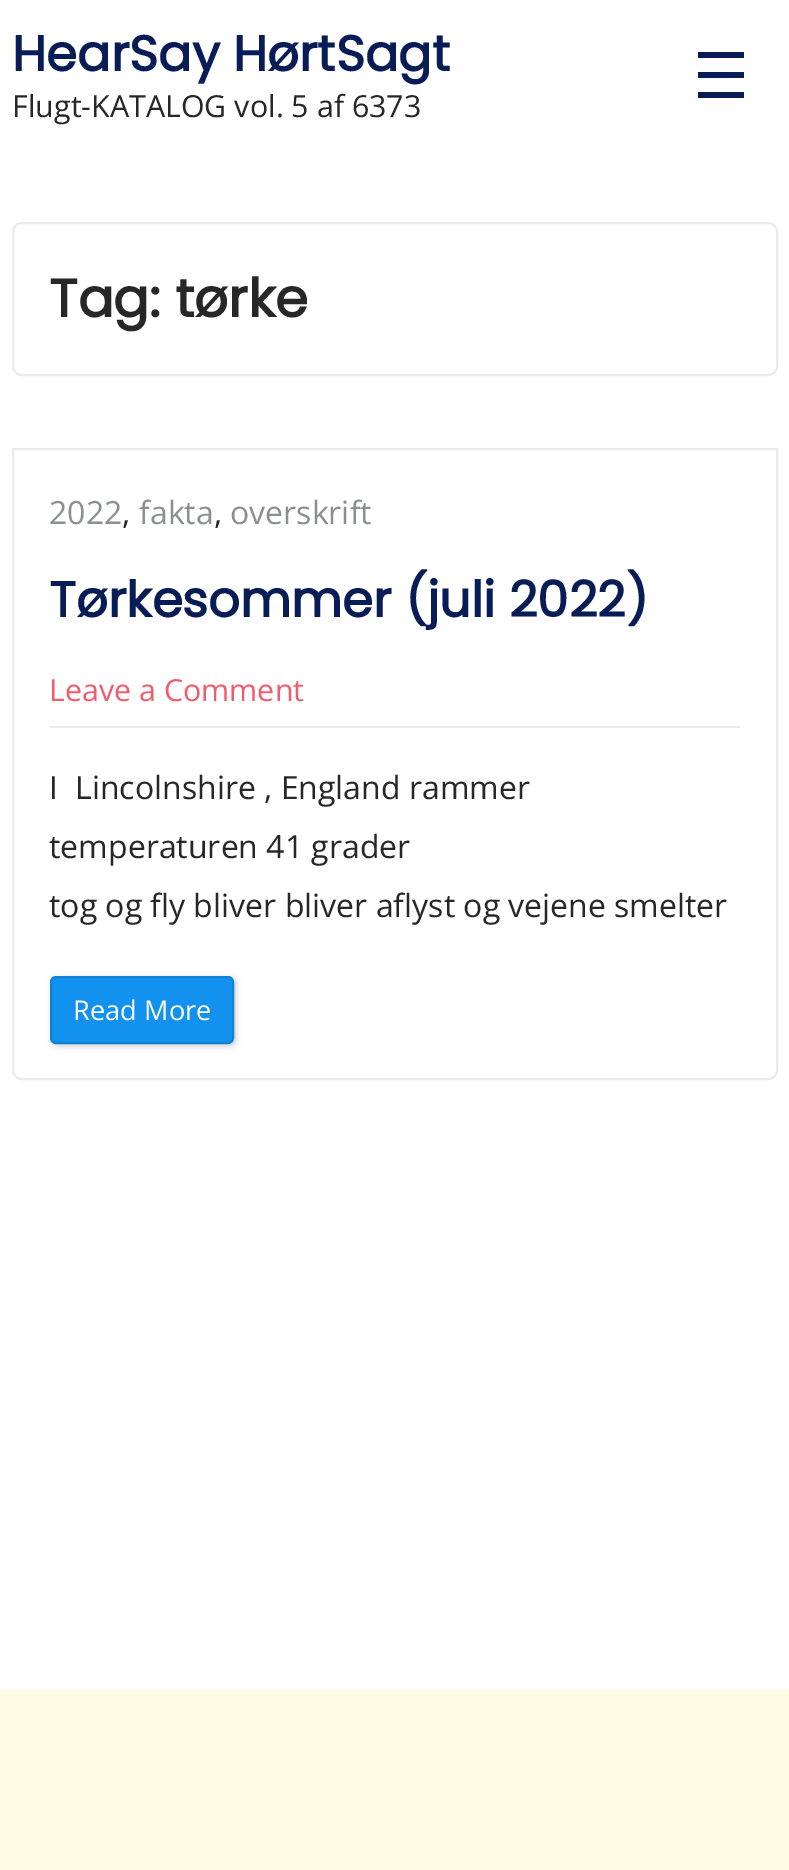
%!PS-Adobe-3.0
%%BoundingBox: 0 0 789 1870
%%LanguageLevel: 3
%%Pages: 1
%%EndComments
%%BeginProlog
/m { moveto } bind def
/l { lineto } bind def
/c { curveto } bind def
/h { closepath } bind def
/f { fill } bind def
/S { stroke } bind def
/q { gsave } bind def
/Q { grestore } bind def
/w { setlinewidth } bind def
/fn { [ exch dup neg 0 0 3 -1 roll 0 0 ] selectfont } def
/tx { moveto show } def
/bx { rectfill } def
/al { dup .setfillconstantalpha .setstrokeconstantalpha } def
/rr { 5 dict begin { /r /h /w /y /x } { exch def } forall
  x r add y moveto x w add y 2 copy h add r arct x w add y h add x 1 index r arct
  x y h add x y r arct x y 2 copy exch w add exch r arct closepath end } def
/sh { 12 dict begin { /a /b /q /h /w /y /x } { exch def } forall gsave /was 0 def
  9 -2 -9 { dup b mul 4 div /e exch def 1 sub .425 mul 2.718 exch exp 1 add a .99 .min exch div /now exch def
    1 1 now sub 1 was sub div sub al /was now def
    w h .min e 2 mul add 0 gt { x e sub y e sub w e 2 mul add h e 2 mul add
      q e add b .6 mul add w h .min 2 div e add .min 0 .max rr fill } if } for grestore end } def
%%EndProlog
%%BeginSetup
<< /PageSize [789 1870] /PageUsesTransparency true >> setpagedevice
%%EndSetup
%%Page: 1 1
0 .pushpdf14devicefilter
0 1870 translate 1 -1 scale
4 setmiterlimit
1 setgray
0 0 789 1870 bx
/Poppins-Bold 49.6 fn
0.031 0.114 0.337 setrgbcolor
(HearSay HørtSagt) 12 71 tx
/OpenSans-Regular 30.4 fn
0.153 setgray
(Flugt-KATALOG vol. 5 af 6373) 12 117 tx
0.031 0.114 0.337 setrgbcolor
698 52 46 6 bx
698 72 46 6 bx
698 92 46 6 bx
0.922 setgray
2 w
13 223 764 152 9 rr S
/Poppins-Bold 53 fn
0.153 setgray
(Tag: tørke) 49 317 tx
0.922 setgray
13 449 m 777 449 l 777 1070 l 777 1075 773 1079 768 1079 c 22 1079 l 17 1079 13 1075 13 1070 c h S
/OpenSans-Regular 32 fn
0.545 0.557 0.576 setrgbcolor
(2022) 49 524 tx
0.153 setgray
(,) 122 524 tx
0.545 0.557 0.576 setrgbcolor
(fakta) 139 524 tx
0.153 setgray
(,) 214 524 tx
0.545 0.557 0.576 setrgbcolor
(overskrift) 230 524 tx
/Poppins-Bold 49.6 fn
0.031 0.114 0.337 setrgbcolor
(Tørkesommer \(juli 2022\)) 49 617 tx
0.922 setgray
50 726 690 2 bx
/OpenSans-Regular 30.4 fn
0.945 0.357 0.424 setrgbcolor
(Leave a Comment) 49 701 tx
/OpenSans-Regular 32 fn
0.153 setgray
(I) 49 799 tx
(Lincolnshire , England rammer) 75 799 tx
(temperaturen 41 grader) 49 858 tx
(tog og fly bliver bliver aflyst og vejene smelter) 49 917 tx
0 setgray
52 978 184 68 6 3 0.2 sh
0.071 0.569 0.933 setrgbcolor
51 977 182 66 5 rr q f Q
0.059 0.51 0.839 setrgbcolor
S
/OpenSans-Regular 27.25 fn
1 setgray
(Read More) 73 1020 tx
0.996 0.984 0.886 setrgbcolor
0 1690 789 180 bx
.poppdf14devicefilter showpage
%%EOF
